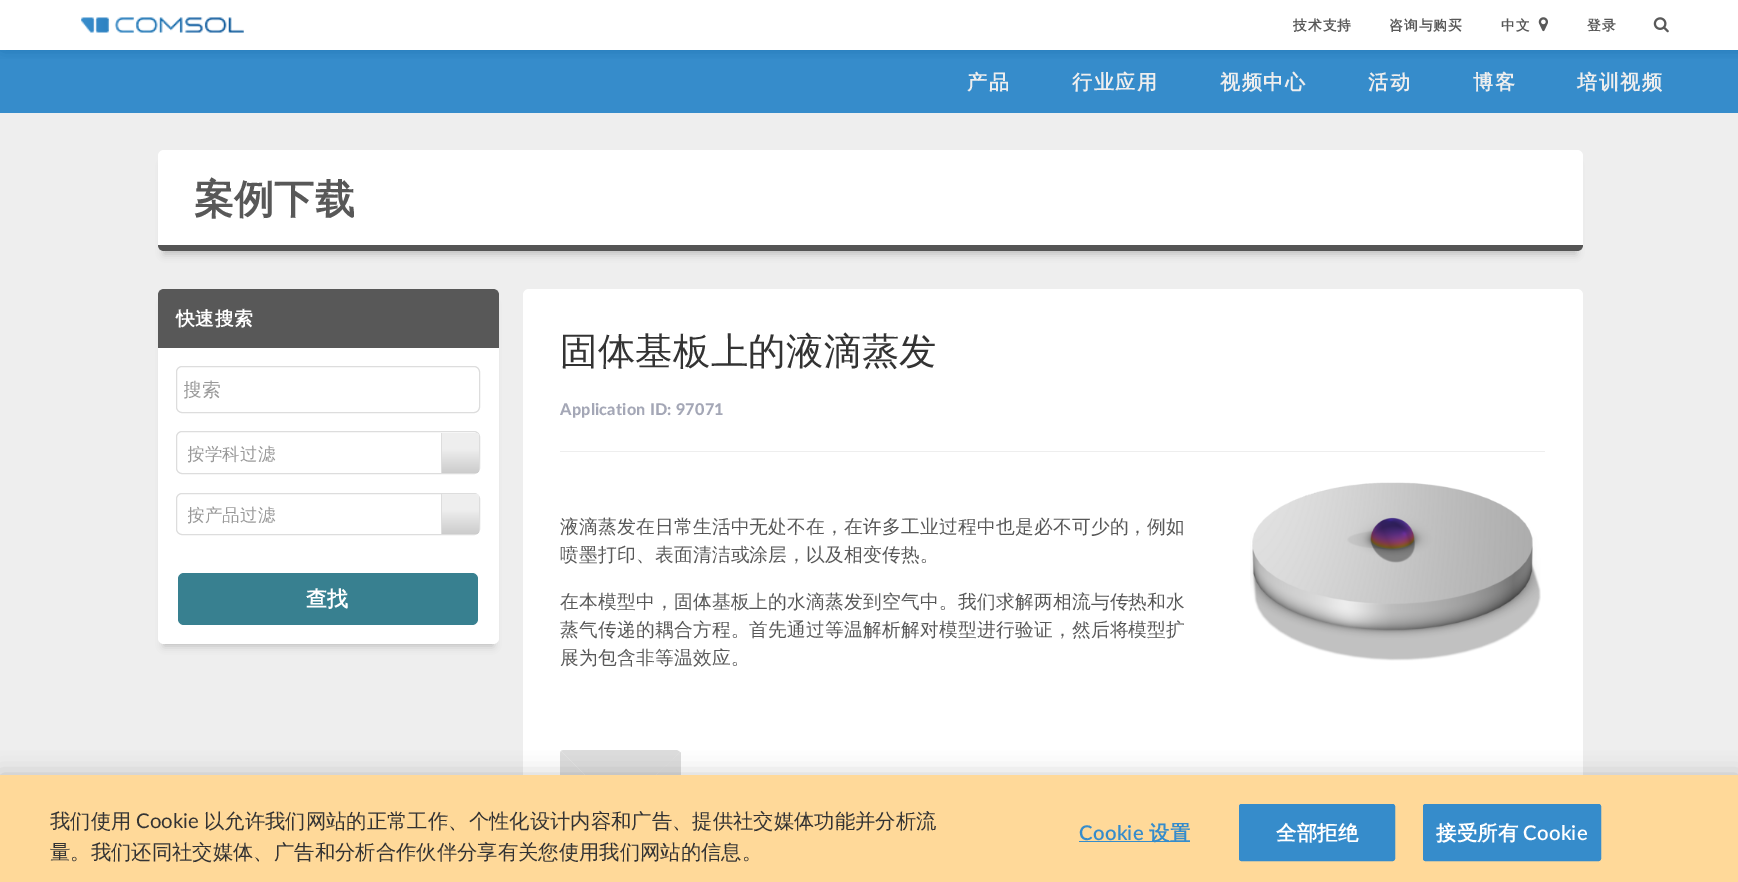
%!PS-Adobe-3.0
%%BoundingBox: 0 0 1738 882
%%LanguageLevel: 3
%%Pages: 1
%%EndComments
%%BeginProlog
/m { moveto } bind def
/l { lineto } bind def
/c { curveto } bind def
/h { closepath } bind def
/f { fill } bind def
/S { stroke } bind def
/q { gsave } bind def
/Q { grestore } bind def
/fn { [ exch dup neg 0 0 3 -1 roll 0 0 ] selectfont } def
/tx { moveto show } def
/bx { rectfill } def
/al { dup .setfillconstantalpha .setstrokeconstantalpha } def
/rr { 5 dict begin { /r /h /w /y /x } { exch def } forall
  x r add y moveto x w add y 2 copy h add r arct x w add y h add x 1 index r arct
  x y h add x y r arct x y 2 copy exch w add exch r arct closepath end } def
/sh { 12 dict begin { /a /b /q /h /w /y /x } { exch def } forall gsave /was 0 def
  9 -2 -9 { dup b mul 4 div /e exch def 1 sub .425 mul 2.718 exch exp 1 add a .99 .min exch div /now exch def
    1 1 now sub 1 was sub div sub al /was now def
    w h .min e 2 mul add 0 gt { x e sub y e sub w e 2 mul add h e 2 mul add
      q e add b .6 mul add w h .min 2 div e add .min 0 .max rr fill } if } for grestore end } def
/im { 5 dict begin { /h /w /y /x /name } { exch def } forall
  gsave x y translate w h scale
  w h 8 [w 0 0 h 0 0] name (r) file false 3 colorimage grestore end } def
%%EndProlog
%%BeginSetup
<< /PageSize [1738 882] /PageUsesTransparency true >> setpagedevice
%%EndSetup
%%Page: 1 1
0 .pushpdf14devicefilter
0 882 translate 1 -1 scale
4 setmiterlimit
1 setgray
0 0 1738 882 bx
0.212 0.549 0.796 setrgbcolor
0 50 1738 63 bx
q
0 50 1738 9 rectclip
0 0.333 0.588 setrgbcolor
4 -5 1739 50 0 7 1 sh
Q
(image0.raw) 81 17 163 16 im
/WenQuanYiZenHei-Bold 13.75 fn
0.345 setgray
1293 30 m 1 0 (技术支持) ashow
1389 30 m 1 0 (咨询与购买) ashow
1501 30 m 1 0 (中文) ashow
(image1.raw) 1538 17 10 15 im
1587 30 m 1 0 (登录) ashow
(image2.raw) 1653 17 16 16 im
/WenQuanYiZenHei-Bold 20 fn
0.933 setgray
967 89 m 1.5 0 (产品) ashow
1072 89 m 1.5 0 (行业应用) ashow
1220 89 m 1.5 0 (视频中心) ashow
1368 89 m 1.5 0 (活动) ashow
1473 89 m 1.5 0 (博客) ashow
1577 89 m 1.5 0 (培训视频) ashow
0 113 1738 662 bx
0 setgray
164 165 1412 89 0 4 0.2 sh
1 setgray
158 150 1425 101 6 rr f
0.333 setgray
158 245 m 1583 245 l 1583 248.5 1580.5 251 1577 251 c 164 251 l 160.5 251 158 248.5 158 245 c h f
/WenQuanYiZenHei-Bold 40 fn
0.345 setgray
194 213 m 0.2 0 (案例下载) ashow
0 setgray
164 304 329 342 0 4 0.2 sh
1 setgray
158 289 341 355 6 rr f
0.345 setgray
164 289 m 493 289 l 496.5 289 499 291.5 499 295 c 499 348 l 158 348 l 158 295 l 158 291.5 160.5 289 164 289 c h f
/WenQuanYiZenHei-Bold 18.75 fn
1 setgray
176 325 m 0.5 0 (快速搜索) ashow
0.867 setgray
176.5 366.5 303 46 5.5 rr S
q
184 375 289 28 rectclip
/WenQuanYiZenHei-Medium 18.75 fn
0.6 setgray
(搜索) 183 396 tx
Q
176.5 431.5 303 42 5.5 rr S
q
188 433 258 40 rectclip
/WenQuanYiZenHei-Medium 17.5 fn
0.6 setgray
187 460 m 0.2 0 (按学科过滤) ashow
Q
q 441 433 m 474 433 l 477 433 479 435 479 438 c 479 468 l 479 471 477 473 474 473 c 441 473 l h clip newpath
<< /ShadingType 2 /ColorSpace /DeviceRGB /Coords [443 473 443 433] /Extend [true true] /Function << /FunctionType 3 /Domain [0 1] /Functions [<< /FunctionType 2 /Domain [0 1] /C0 [0.8 0.8 0.8] /C1 [0.933 0.933 0.933] /N 1 >> << /FunctionType 2 /Domain [0 1] /C0 [0.933 0.933 0.933] /C1 [0.933 0.933 0.933] /N 1 >>] /Bounds [0.6] /Encode [0 1 0 1] >> >> shfill Q
441 433 1 40 bx
176.5 493.5 303 41 5.5 rr S
q
188 494 258 40 rectclip
/WenQuanYiZenHei-Medium 17.5 fn
0.6 setgray
187 521 m 0.2 0 (按产品过滤) ashow
Q
q 441 494 m 474 494 l 477 494 479 496 479 499 c 479 529 l 479 532 477 534 474 534 c 441 534 l h clip newpath
<< /ShadingType 2 /ColorSpace /DeviceRGB /Coords [443 534 443 494] /Extend [true true] /Function << /FunctionType 3 /Domain [0 1] /Functions [<< /FunctionType 2 /Domain [0 1] /C0 [0.8 0.8 0.8] /C1 [0.933 0.933 0.933] /N 1 >> << /FunctionType 2 /Domain [0 1] /C0 [0.933 0.933 0.933] /C1 [0.933 0.933 0.933] /N 1 >>] /Bounds [0.6] /Encode [0 1 0 1] >> >> shfill Q
441 494 1 40 bx
0.22 0.502 0.565 setrgbcolor
178 573 300 52 6 rr f
/WenQuanYiZenHei-Bold 21 fn
1 setgray
(查找) 306 606 tx
523 289 1060 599 6 rr f
/WenQuanYiZenHei-Medium 37.5 fn
0.2 setgray
560 364 m 0.2 0 (固体基板上的液滴蒸发) ashow
/Lato-Black 16.25 fn
0.643 0.655 0.714 setrgbcolor
560 415 m 0.2 0 (Application ID: 97071) ashow
0.933 setgray
560 451 985 1 bx
/WenQuanYiZenHei-Medium 18.75 fn
0.345 setgray
560 533 m 0.2 0 (液滴蒸发在日常生活中无处不在，在许多工业过程中也是必不可少的，例如) ashow
560 561 m 0.2 0 (喷墨打印、表面清洁或涂层，以及相变传热。) ashow
560 608 m 0.2 0 (在本模型中，固体基板上的水滴蒸发到空气中。我们求解两相流与传热和水) ashow
560 636 m 0.2 0 (蒸气传递的耦合方程。首先通过等温解析解对模型进行验证，然后将模型扩) ashow
560 664 m 0.2 0 (展为包含非等温效应。) ashow
(image3.raw) 1250 482 291 179 im
0.867 setgray
565 750 m 677 750 l 680 752 l 652 779 l 589 779 l 561 751 l 562 750 564 750 565 750 c h f
680 752 m 652 779 l 681 807 l 681 755 l 681 754 681 752 680 752 c h f
560 808 m 589 779 l 561 751 l 560 752 560 754 560 755 c h f
0 setgray
0 775 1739 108 0 11 0.2 sh
1 0.851 0.6 setrgbcolor
0 775 1738 107 bx
/WenQuanYiZenHei-Medium 20.35 fn
0.2 setgray
(我们使用) 50 828 tx
/Lato-Regular 20.35 fn
(Cookie) 136 828 tx
/WenQuanYiZenHei-Medium 20.35 fn
(以允许我们网站的正常工作、个性化设计内容和广告、提供社交媒体功能并分析流) 204 828 tx
(量。我们还同社交媒体、广告和分析合作伙伴分享有关您使用我们网站的信息。) 50 859 tx
/Lato-SemiBold 20.35 fn
0.212 0.549 0.796 setrgbcolor
1079 840 m 0.25 0 (Cookie) ashow
1079 841 111 1 bx
/WenQuanYiZenHei-Bold 20.35 fn
1149 840 m 0.25 0 (设置) ashow
1239.5 804.5 155 56 2 rr q f Q
S
1 setgray
1276 840 m 0.25 0 (全部拒绝) ashow
0.212 0.549 0.796 setrgbcolor
1423.5 804.5 177 56 2 rr q f Q
S
1 setgray
1436 840 m 0.25 0 (接受所有) ashow
/Lato-SemiBold 20.35 fn
1523 840 m 0.25 0 (Cookie) ashow
.poppdf14devicefilter showpage
%%EOF
